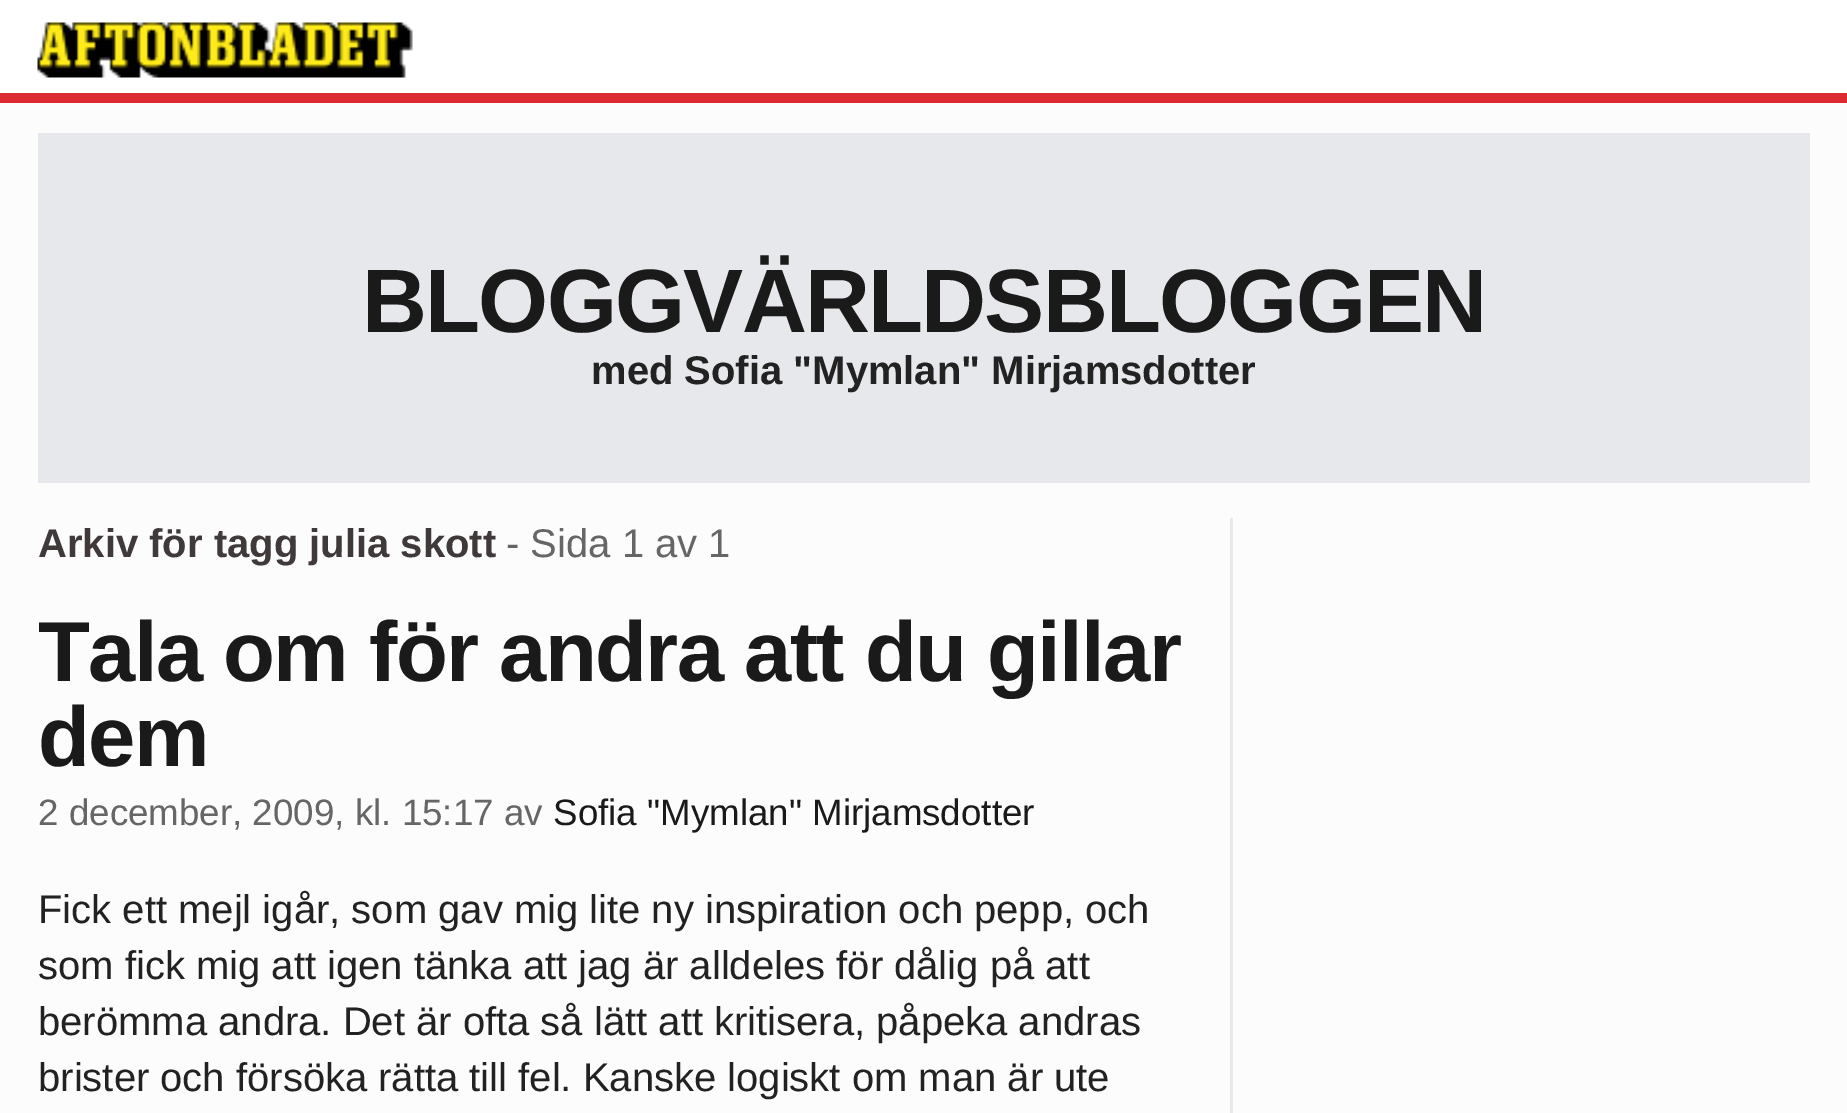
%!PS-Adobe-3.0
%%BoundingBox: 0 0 1847 1113
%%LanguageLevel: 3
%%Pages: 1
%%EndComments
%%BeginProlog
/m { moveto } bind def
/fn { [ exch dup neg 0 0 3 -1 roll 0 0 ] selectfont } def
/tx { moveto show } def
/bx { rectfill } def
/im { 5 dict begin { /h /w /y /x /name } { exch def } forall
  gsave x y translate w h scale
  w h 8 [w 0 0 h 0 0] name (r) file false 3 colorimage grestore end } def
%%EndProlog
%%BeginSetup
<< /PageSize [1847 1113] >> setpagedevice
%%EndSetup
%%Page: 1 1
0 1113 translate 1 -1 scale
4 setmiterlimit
0.988 setgray
0 0 1847 1113 bx
1 setgray
0 0 1847 93 bx
0.867 0.165 0.188 setrgbcolor
0 93 1847 10 bx
(image0.raw) 37 22 376 56 im
0.906 0.91 0.922 setrgbcolor
38 133 1772 350 bx
/LiberationSans-Bold 90 fn
0.102 setgray
362 332 m -1.75 0 (BLOGGVÄRLDSBLOGGEN) ashow
/LiberationSans-Bold 40 fn
0.133 setgray
(med Sofia "Mymlan" Mirjamsdotter) 591 384 tx
0.914 setgray
1230 518 3 595 bx
0.251 0.224 0.227 setrgbcolor
(Arkiv för tagg julia skott) 38 557 tx
/LiberationSans-Regular 40 fn
0.4 setgray
(- Sida 1 av 1) 506 557 tx
/LiberationSans-Bold 85 fn
0.102 setgray
38 681 m -1.7 0 (Tala om för andra att du gillar) ashow
38 766 m -1.7 0 (dem) ashow
/LiberationSans-Regular 36.75 fn
0.4 setgray
(2 december, 2009, kl. 15:17 av) 38 825 tx
0.102 setgray
(Sofia "Mymlan" Mirjamsdotter) 553 825 tx
/LiberationSans-Regular 40 fn
0.133 setgray
(Fick ett mejl igår, som gav mig lite ny inspiration och pepp, och) 38 923 tx
(som fick mig att igen tänka att jag är alldeles för dålig på att) 38 979 tx
(berömma andra. Det är ofta så lätt att kritisera, påpeka andras) 38 1035 tx
(brister och försöka rätta till fel. Kanske logiskt om man är ute) 38 1091 tx
showpage
%%EOF
